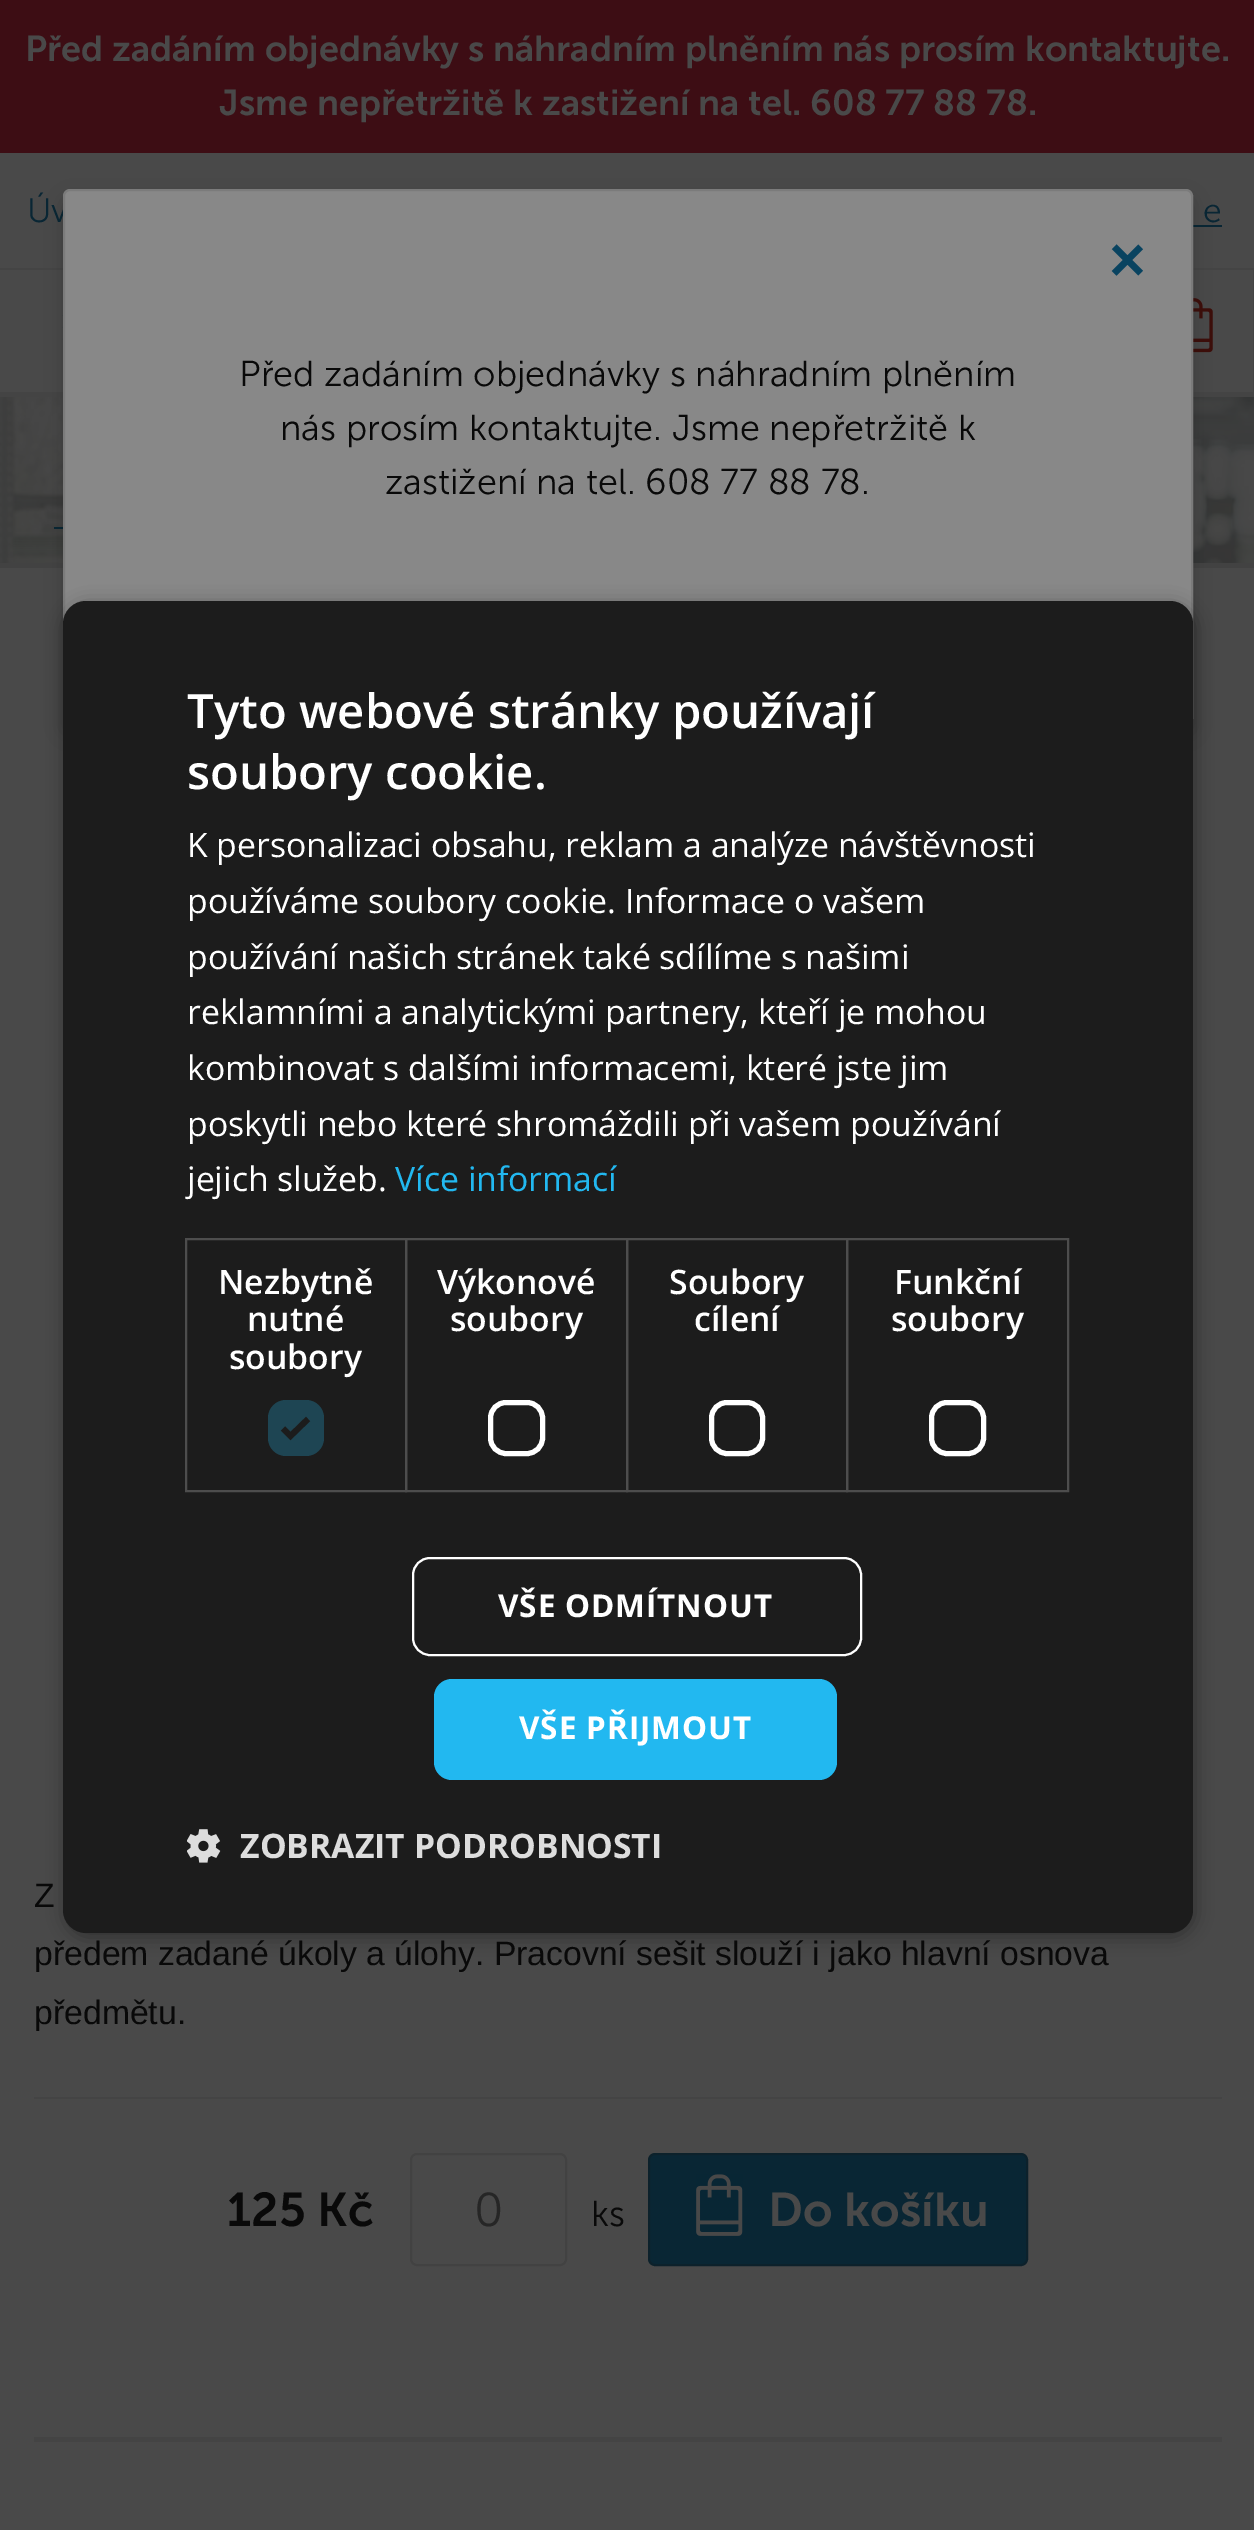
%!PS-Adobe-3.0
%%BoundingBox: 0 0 1254 2530
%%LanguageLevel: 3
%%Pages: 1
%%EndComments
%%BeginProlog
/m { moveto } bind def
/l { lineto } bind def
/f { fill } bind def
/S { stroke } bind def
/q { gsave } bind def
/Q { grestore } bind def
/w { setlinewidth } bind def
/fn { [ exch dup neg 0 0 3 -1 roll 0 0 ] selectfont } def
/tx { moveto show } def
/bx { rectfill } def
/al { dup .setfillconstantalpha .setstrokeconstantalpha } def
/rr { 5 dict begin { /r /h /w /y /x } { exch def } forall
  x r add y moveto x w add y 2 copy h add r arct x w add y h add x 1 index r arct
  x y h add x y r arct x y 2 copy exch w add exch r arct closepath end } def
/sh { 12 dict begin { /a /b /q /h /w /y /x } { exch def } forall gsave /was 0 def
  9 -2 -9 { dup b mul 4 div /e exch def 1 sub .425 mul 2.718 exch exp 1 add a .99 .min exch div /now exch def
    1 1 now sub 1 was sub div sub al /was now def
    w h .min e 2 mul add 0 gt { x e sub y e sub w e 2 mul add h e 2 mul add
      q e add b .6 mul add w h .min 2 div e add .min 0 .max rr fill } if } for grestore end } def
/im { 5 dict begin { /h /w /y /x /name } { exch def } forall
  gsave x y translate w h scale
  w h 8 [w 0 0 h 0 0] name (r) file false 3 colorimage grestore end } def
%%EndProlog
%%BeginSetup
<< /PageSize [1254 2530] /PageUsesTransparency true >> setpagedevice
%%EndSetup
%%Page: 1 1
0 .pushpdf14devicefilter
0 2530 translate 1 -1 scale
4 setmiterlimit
0.286 setgray
0 0 1254 2530 bx
0.239 0.051 0.078 setrgbcolor
0 0 1254 153 bx
/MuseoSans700-SemiBold 36 fn
0.286 setgray
(Před zadáním objednávky s náhradním plněním nás prosím kontaktujte.) 25 61 tx
(Jsme nepřetržitě k zastižení na tel. 608 77 88 78.) 219 115 tx
0.267 setgray
0 268 1254 2 bx
/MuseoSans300-Light 33.75 fn
0.035 0.149 0.204 setrgbcolor
(Úv) 27 222 tx
(e) 1203 222 tx
1193 225 29 2 bx
0.267 setgray
0 392 1254 5 bx
(image0.raw) 62 315 1 25 im
(image1.raw) 1193 298 20 55 im
(image3.raw) 0 397 1254 166 im
0.259 setgray
0 563 1254 5 bx
0.035 0.149 0.204 setrgbcolor
54 527 9 2 bx
0.035 setgray
63 198 1130 536 7 9 0.2 sh
0.533 setgray
64 190 1128 534 6 rr q f Q
0.482 setgray
2 w
S
/LiberationSans-Bold 63 fn
0.035 0.263 0.376 setrgbcolor
(×) 1109 281 tx
/MuseoSans300-Light 36 fn
0.035 setgray
(Před zadáním objednávky s náhradním plněním) 239 386 tx
(nás prosím kontaktujte. Jsme nepřetržitě k) 280 440 tx
(zastižení na tel. 608 77 88 78.) 385 494 tx
0.267 setgray
1253 270 1 122 bx
0 setgray
65 605 1130 1332 23 9 0.35 sh
0.11 setgray
63 601 1130 1332 23 rr f
/OpenSans-SemiBold 47.25 fn
1 setgray
(Tyto webové stránky používají) 187 728 tx
(soubory cookie.) 187 789 tx
/OpenSans-Regular 33.75 fn
(K personalizaci obsahu, reklam a analýze návštěvnosti) 187 857 tx
(používáme soubory cookie. Informace o vašem) 187 913 tx
(používání našich stránek také sdílíme s našimi) 187 969 tx
(reklamními a analytickými partnery, kteří je mohou) 187 1024 tx
(kombinovat s dalšími informacemi, které jste jim) 187 1080 tx
(poskytli nebo které shromáždili při vašem používání) 187 1136 tx
(jejich služeb.) 187 1191 tx
0.133 0.722 0.941 setrgbcolor
(Více informací) 395 1191 tx
0.302 setgray
186 1239 220 252 rectstroke
/OpenSans-SemiBold 33.75 fn
1 setgray
(Nezbytně) 218 1294 tx
(nutné) 247 1331 tx
(soubory) 229 1369 tx
0.118 0.271 0.325 setrgbcolor
268 1400 56 56 18 rr f
0.11 setgray
5.9 w
283 1428.5 m 290.5 1436 l 308 1419 l S
0.302 setgray
2 w
406 1239 221 252 rectstroke
1 setgray
(Výkonové) 437 1294 tx
(soubory) 450 1331 tx
5 w
490.5 1402.5 52 51 15.5 rr S
0.302 setgray
2 w
627 1239 220 252 rectstroke
1 setgray
(Soubory) 669 1294 tx
(cílení) 694 1331 tx
5 w
711.5 1402.5 51 51 15.5 rr S
0.302 setgray
2 w
847 1239 221 252 rectstroke
1 setgray
(Funkční) 894 1294 tx
(soubory) 891 1331 tx
5 w
931.5 1402.5 52 51 15.5 rr S
2 w
413 1558 448 97 17 rr S
/OpenSans-Bold 31.5 fn
498 1617 m 0.9 0 (VŠE ODMÍTNOUT) ashow
0.133 0.722 0.941 setrgbcolor
434 1679 403 101 18 rr f
1 setgray
519 1739 m 0.9 0 (VŠE PŘIJMOUT) ashow
(image2.raw) 187 1829 34 34 im
/OpenSans-Bold 33.75 fn
0.867 setgray
(ZOBRAZIT PODROBNOSTI) 240 1858 tx
0.267 setgray
34 2437 1188 5 bx
34 2097 1188 2 bx
/LiberationSans-Regular 33.75 fn
0.035 setgray
(Z) 34 1907 tx
(předem zadané úkoly a úlohy. Pracovní sešit slouží i jako hlavní osnova) 34 1965 tx
(předmětu.) 34 2024 tx
/MuseoSans700-SemiBold 47.25 fn
(125 Kč) 227 2226 tx
0.259 setgray
411 2154 155 111 6 rr S
/MuseoSans300-Light 47.25 fn
0.149 setgray
(0) 474 2226 tx
/MuseoSans300-Light 36 fn
0.035 setgray
(ks) 591 2226 tx
0.035 0.149 0.204 setrgbcolor
649 2154 378 111 6 rr q f Q
0.047 0.129 0.169 setrgbcolor
S
(image4.raw) 696 2174 47 62 im
/MuseoSans700-SemiBold 47.25 fn
0.286 setgray
(Do košíku) 768 2226 tx
.poppdf14devicefilter showpage
%%EOF
